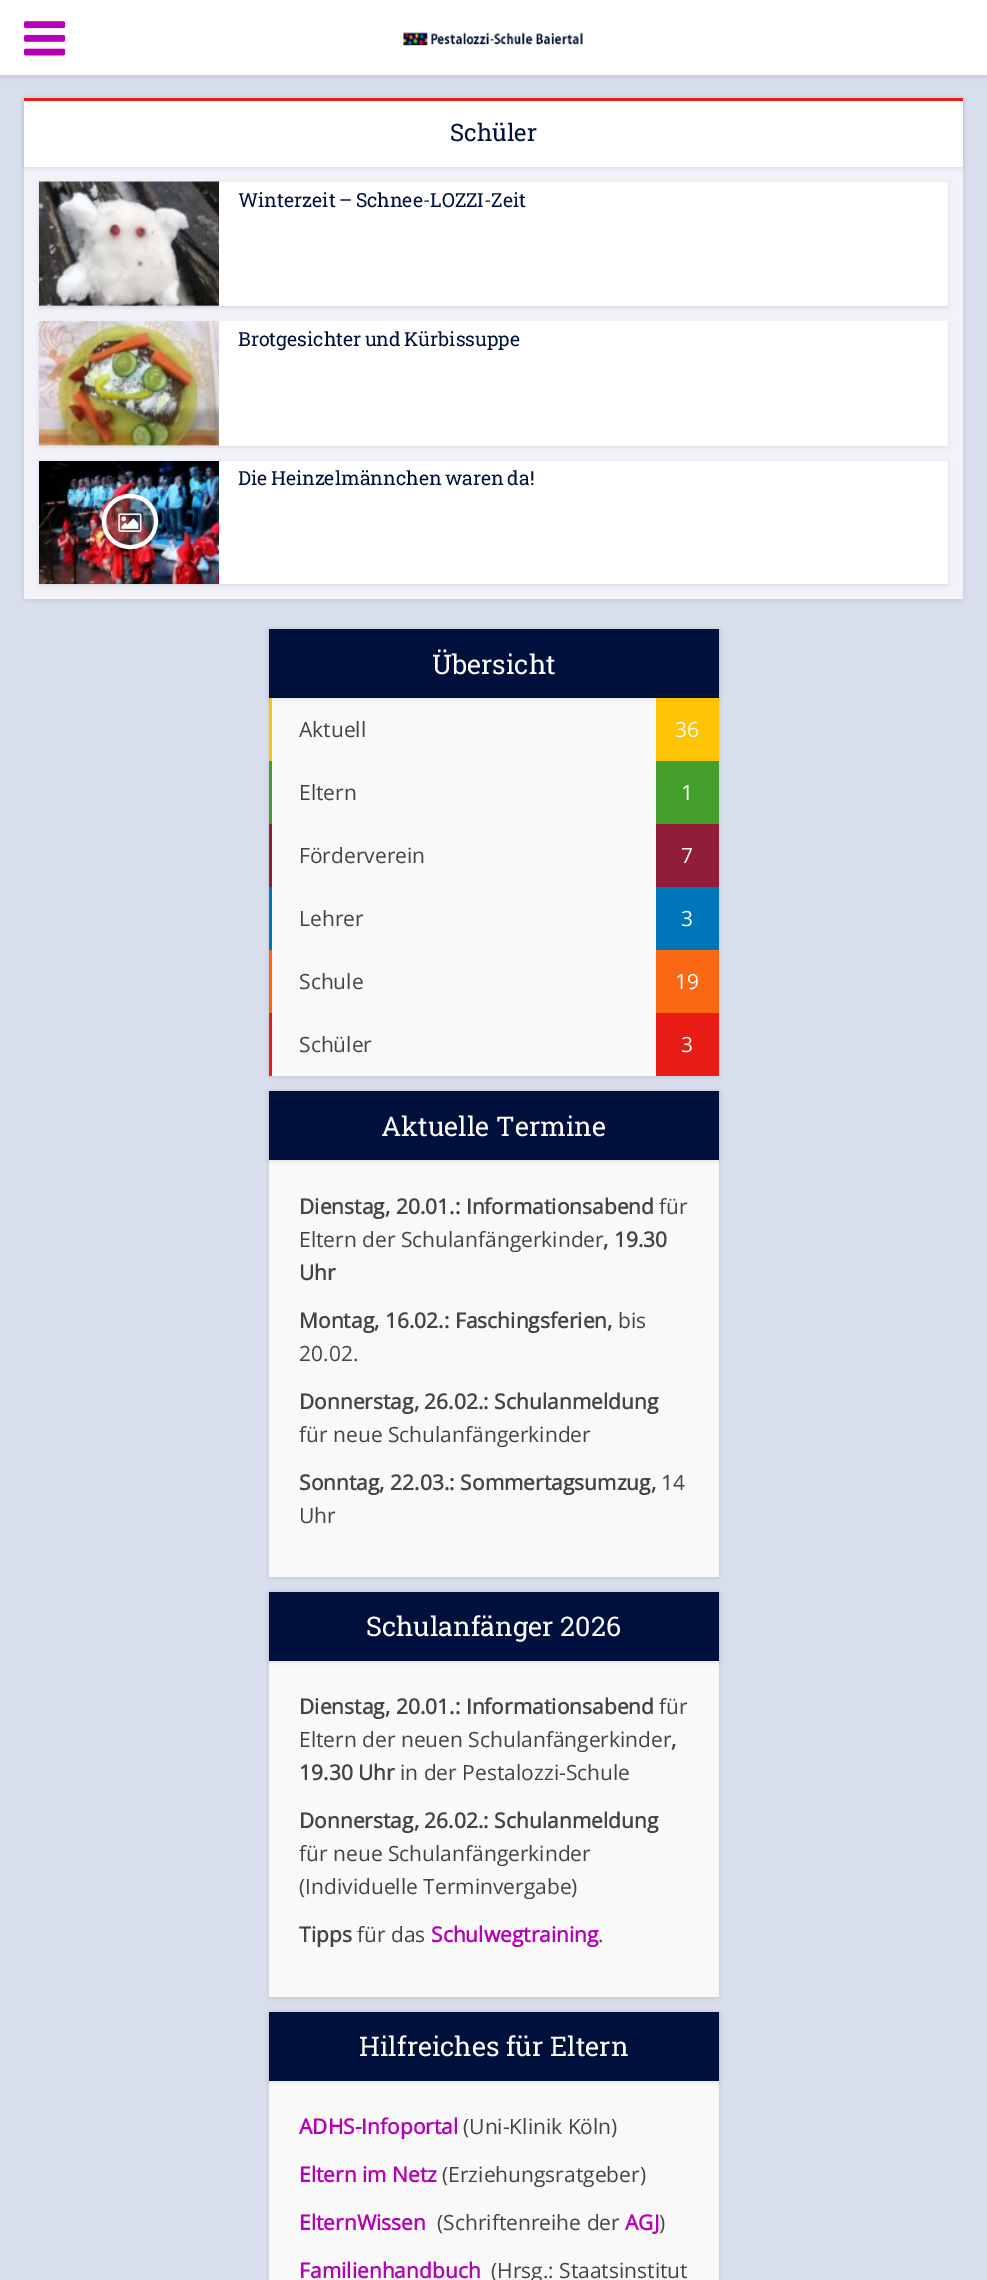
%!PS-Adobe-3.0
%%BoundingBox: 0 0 987 2280
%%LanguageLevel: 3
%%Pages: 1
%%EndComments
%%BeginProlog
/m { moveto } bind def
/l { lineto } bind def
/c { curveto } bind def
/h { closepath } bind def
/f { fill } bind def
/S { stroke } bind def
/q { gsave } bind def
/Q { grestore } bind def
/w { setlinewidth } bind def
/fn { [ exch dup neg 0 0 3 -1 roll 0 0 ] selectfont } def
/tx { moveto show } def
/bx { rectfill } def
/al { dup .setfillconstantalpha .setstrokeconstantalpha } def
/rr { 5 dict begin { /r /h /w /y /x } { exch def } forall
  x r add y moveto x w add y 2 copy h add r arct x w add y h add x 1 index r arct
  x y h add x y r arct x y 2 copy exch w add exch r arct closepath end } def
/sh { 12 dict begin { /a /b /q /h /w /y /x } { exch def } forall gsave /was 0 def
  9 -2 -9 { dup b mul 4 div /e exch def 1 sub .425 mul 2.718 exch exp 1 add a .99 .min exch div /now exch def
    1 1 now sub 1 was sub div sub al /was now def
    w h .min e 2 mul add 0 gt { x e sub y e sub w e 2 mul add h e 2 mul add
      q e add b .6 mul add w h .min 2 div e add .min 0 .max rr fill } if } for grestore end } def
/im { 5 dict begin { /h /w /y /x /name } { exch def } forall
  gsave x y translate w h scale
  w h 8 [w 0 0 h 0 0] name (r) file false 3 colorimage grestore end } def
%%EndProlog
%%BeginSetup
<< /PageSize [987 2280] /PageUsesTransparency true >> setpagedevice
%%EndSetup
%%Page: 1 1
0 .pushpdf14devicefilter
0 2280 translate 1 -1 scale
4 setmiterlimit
0.847 0.871 0.925 setrgbcolor
0 0 987 2280 bx
0 setgray
0 2 987 75 0 2 0.1 sh
1 setgray
0 0 987 75 bx
(image0.raw) 24 21 42 35 im
(image1.raw) 403 31 180 17 im
0 setgray
24 99 939 501 0 2 0.1 sh
0.945 0.953 0.973 setrgbcolor
24 167 939 432 bx
0 setgray
24 99 939 69 0 2 0.1 sh
1 setgray
24 101 939 66 bx
0.902 0.11 0.082 setrgbcolor
24 98 939 3 bx
/RobotoSlab-Regular 24 fn
0 0.063 0.235 setrgbcolor
(Schüler) 450 141 tx
0 setgray
39 183 909 125 0 2 0.1 sh
1 setgray
39 182 909 124 bx
(image2.raw) 39 181 180 125 im
/RobotoSlab-Regular 19.5 fn
0 0.063 0.235 setrgbcolor
238 207 m -1.5 0 32 (Winterzeit – Schnee-LOZZI-Zeit) widthshow
0 setgray
39 323 909 124 0 2 0.1 sh
1 setgray
39 321 909 125 bx
(image3.raw) 39 321 180 125 im
0 0.063 0.235 setrgbcolor
238 346 m -1.5 0 32 (Brotgesichter und Kürbissuppe) widthshow
0 setgray
39 462 909 123 0 2 0.1 sh
1 setgray
219 461 729 123 bx
(image4.raw) 39 461 180 123 im
q
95 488 m 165 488 l 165 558 l 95 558 l h 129.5 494 m 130.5 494 l 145.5 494 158 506.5 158 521.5 c 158 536.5 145.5 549 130.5 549 c 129.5 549 l 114.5 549 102 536.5 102 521.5 c 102 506.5 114.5 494 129.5 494 c h eoclip newpath
0 setgray
102 495 56 56 28 2 0.2 sh
Q
0.5 al
0.29 setgray
104 496 52 51 25.5 rr f
1 al
1 setgray
4 w
104 496 52 51 25.5 rr S
(image5.raw) 118 513 24 19 im
0 0.063 0.235 setrgbcolor
238 485 m -1.5 0 32 (Die Heinzelmännchen waren da!) widthshow
0 setgray
269 630 450 447 0 2 0.1 sh
0.976 setgray
272 698 384 378 bx
0 setgray
269 630 450 69 0 2 0.1 sh
0 0.063 0.235 setrgbcolor
269 629 450 69 bx
/RobotoSlab-Regular 27 fn
1 setgray
(Übersicht) 432 674 tx
0.996 0.765 0.012 setrgbcolor
269 698 3 63 bx
/OpenSans-Regular 21 fn
0.267 setgray
(Aktuell) 299 737 tx
0.996 0.765 0.012 setrgbcolor
656 698 63 63 bx
1 setgray
(36) 675 737 tx
0.267 0.62 0.169 setrgbcolor
269 761 3 63 bx
0.267 setgray
(Eltern) 299 800 tx
0.267 0.62 0.169 setrgbcolor
656 761 63 63 bx
1 setgray
(1) 681 800 tx
0.569 0.114 0.22 setrgbcolor
269 824 3 63 bx
0.267 setgray
(Förderverein) 299 863 tx
0.569 0.114 0.22 setrgbcolor
656 824 63 63 bx
1 setgray
(7) 681 863 tx
0 0.463 0.729 setrgbcolor
269 887 3 63 bx
0.267 setgray
(Lehrer) 299 926 tx
0 0.463 0.729 setrgbcolor
656 887 63 63 bx
1 setgray
(3) 681 926 tx
0.98 0.408 0.078 setrgbcolor
269 950 3 63 bx
0.267 setgray
(Schule) 299 989 tx
0.98 0.408 0.078 setrgbcolor
656 950 63 63 bx
1 setgray
(19) 675 989 tx
0.902 0.11 0.082 setrgbcolor
269 1013 3 63 bx
0.267 setgray
(Schüler) 299 1052 tx
0.902 0.11 0.082 setrgbcolor
656 1013 63 63 bx
1 setgray
(3) 681 1052 tx
0 setgray
269 1092 450 486 0 2 0.1 sh
0.976 setgray
269 1160 450 417 bx
0 setgray
269 1092 450 69 0 2 0.1 sh
0 0.063 0.235 setrgbcolor
269 1091 450 69 bx
/RobotoSlab-Regular 27 fn
1 setgray
(Aktuelle Termine) 381 1136 tx
/OpenSans-Bold 21 fn
0.267 setgray
(Dienstag, 20.01.: Informationsabend) 299 1214 tx
/OpenSans-Regular 21 fn
(für) 659 1214 tx
(Eltern der Schulanfängerkinder) 299 1247 tx
/OpenSans-Bold 21 fn
(, 19.30) 603 1247 tx
(Uhr) 299 1280 tx
(Montag, 16.02.: Faschingsferien,) 299 1328 tx
/OpenSans-Regular 21 fn
(bis) 618 1328 tx
(20.02.) 299 1361 tx
/OpenSans-Bold 21 fn
(Donnerstag, 26.02.: Schulanmeldung) 299 1409 tx
/OpenSans-Regular 21 fn
(für neue Schulanfängerkinder) 299 1442 tx
/OpenSans-Bold 21 fn
(Sonntag, 22.03.: Sommertagsumzug,) 299 1490 tx
/OpenSans-Regular 21 fn
(14) 661 1490 tx
(Uhr) 299 1523 tx
0 setgray
269 1593 450 405 0 2 0.1 sh
0.976 setgray
269 1661 450 336 bx
0 setgray
269 1593 450 69 0 2 0.1 sh
0 0.063 0.235 setrgbcolor
269 1592 450 69 bx
/RobotoSlab-Regular 27 fn
1 setgray
(Schulanfänger 2026) 366 1636 tx
/OpenSans-Bold 21 fn
0.267 setgray
(Dienstag, 20.01.: Informationsabend) 299 1714 tx
/OpenSans-Regular 21 fn
(für) 659 1714 tx
(Eltern der neuen Schulanfängerkinder) 299 1747 tx
/OpenSans-Bold 21 fn
(,) 671 1747 tx
(19.30 Uhr) 299 1780 tx
/OpenSans-Regular 21 fn
(in der Pestalozzi-Schule) 400 1780 tx
/OpenSans-Bold 21 fn
(Donnerstag, 26.02.: Schulanmeldung) 299 1828 tx
/OpenSans-Regular 21 fn
(für neue Schulanfängerkinder) 299 1861 tx
(\(Individuelle Terminvergabe\)) 299 1894 tx
/OpenSans-Bold 21 fn
(Tipps) 299 1942 tx
/OpenSans-Regular 21 fn
(für das) 357 1942 tx
/OpenSans-Bold 21 fn
0.706 0 0.718 setrgbcolor
(Schulwegtraining) 431 1942 tx
/OpenSans-Regular 21 fn
0.267 setgray
(.) 598 1942 tx
0 setgray
269 2013 450 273 0 2 0.1 sh
0.976 setgray
269 2081 450 199 bx
0 setgray
269 2013 450 69 0 2 0.1 sh
0 0.063 0.235 setrgbcolor
269 2012 450 69 bx
/RobotoSlab-Regular 27 fn
1 setgray
(Hilfreiches für Eltern) 359 2056 tx
/OpenSans-Bold 21 fn
0.706 0 0.718 setrgbcolor
(ADHS-Infoportal) 299 2134 tx
/OpenSans-Regular 21 fn
0.267 setgray
(\(Uni-Klinik Köln\)) 463 2134 tx
/OpenSans-Bold 21 fn
0.706 0 0.718 setrgbcolor
(Eltern im Netz) 299 2182 tx
/OpenSans-Regular 21 fn
0.267 setgray
(\(Erziehungsratgeber\)) 442 2182 tx
/OpenSans-Bold 21 fn
0.706 0 0.718 setrgbcolor
(ElternWissen) 299 2230 tx
/OpenSans-Regular 21 fn
0.267 setgray
(\(Schriftenreihe der) 437 2230 tx
/OpenSans-Bold 21 fn
0.706 0 0.718 setrgbcolor
(AGJ) 625 2230 tx
/OpenSans-Regular 21 fn
0.267 setgray
(\)) 659 2230 tx
/OpenSans-Bold 21 fn
0.706 0 0.718 setrgbcolor
(Familienhandbuch) 299 2278 tx
/OpenSans-Regular 21 fn
0.267 setgray
(\(Hrsg.: Staatsinstitut) 491 2278 tx
.poppdf14devicefilter showpage
%%EOF
